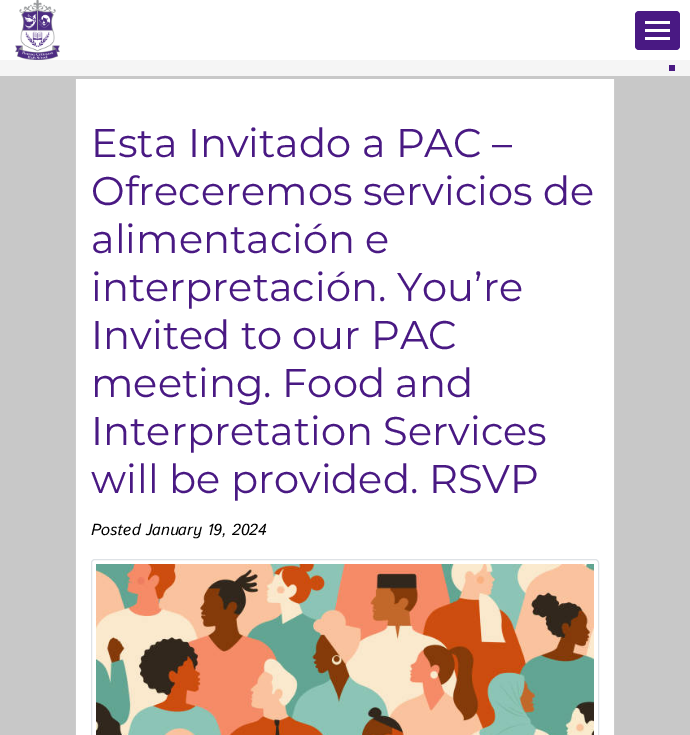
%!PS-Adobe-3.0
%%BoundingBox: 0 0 690 735
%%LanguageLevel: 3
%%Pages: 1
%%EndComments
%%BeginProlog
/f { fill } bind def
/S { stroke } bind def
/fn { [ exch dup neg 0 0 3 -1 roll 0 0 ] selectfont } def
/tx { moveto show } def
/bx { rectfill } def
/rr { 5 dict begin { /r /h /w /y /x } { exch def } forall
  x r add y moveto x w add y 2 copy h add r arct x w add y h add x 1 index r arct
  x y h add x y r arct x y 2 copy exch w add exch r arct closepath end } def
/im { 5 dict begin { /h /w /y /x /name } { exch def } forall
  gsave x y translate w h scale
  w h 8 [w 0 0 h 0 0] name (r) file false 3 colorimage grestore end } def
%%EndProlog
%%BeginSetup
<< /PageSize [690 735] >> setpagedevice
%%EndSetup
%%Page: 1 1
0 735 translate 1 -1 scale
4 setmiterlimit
1 setgray
0 0 690 735 bx
(image0.raw) 15 0 45 60 im
0.286 0.098 0.514 setrgbcolor
635 11 45 39 4 rr f
1 setgray
645 21 25 3 bx
645 29 25 3 bx
645 37 25 3 bx
0.961 setgray
0 60 690 16 bx
0.286 0.098 0.514 setrgbcolor
669 65 6 6 bx
0.784 setgray
0 76 690 659 bx
1 setgray
76 79 538 656 bx
0.8 setgray
614 79 1 656 bx
75 79 1 656 bx
/Montserrat-Regular 40 fn
0.286 0.098 0.514 setrgbcolor
(Esta Invitado a PAC –) 91 157 tx
(Ofreceremos servicios de) 91 205 tx
(alimentación e) 91 253 tx
(interpretación. You’re) 91 301 tx
(Invited to our PAC) 91 349 tx
(meeting. Food and) 91 397 tx
(Interpretation Services) 91 445 tx
(will be provided. RSVP) 91 493 tx
/IstokWeb-BoldItalic 16 fn
0 setgray
(Posted January 19, 2024) 91 535 tx
0.871 0.886 0.902 setrgbcolor
91.5 559.5 507 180 3.5 rr S
(image1.raw) 96 564 498 171 im
showpage
%%EOF
